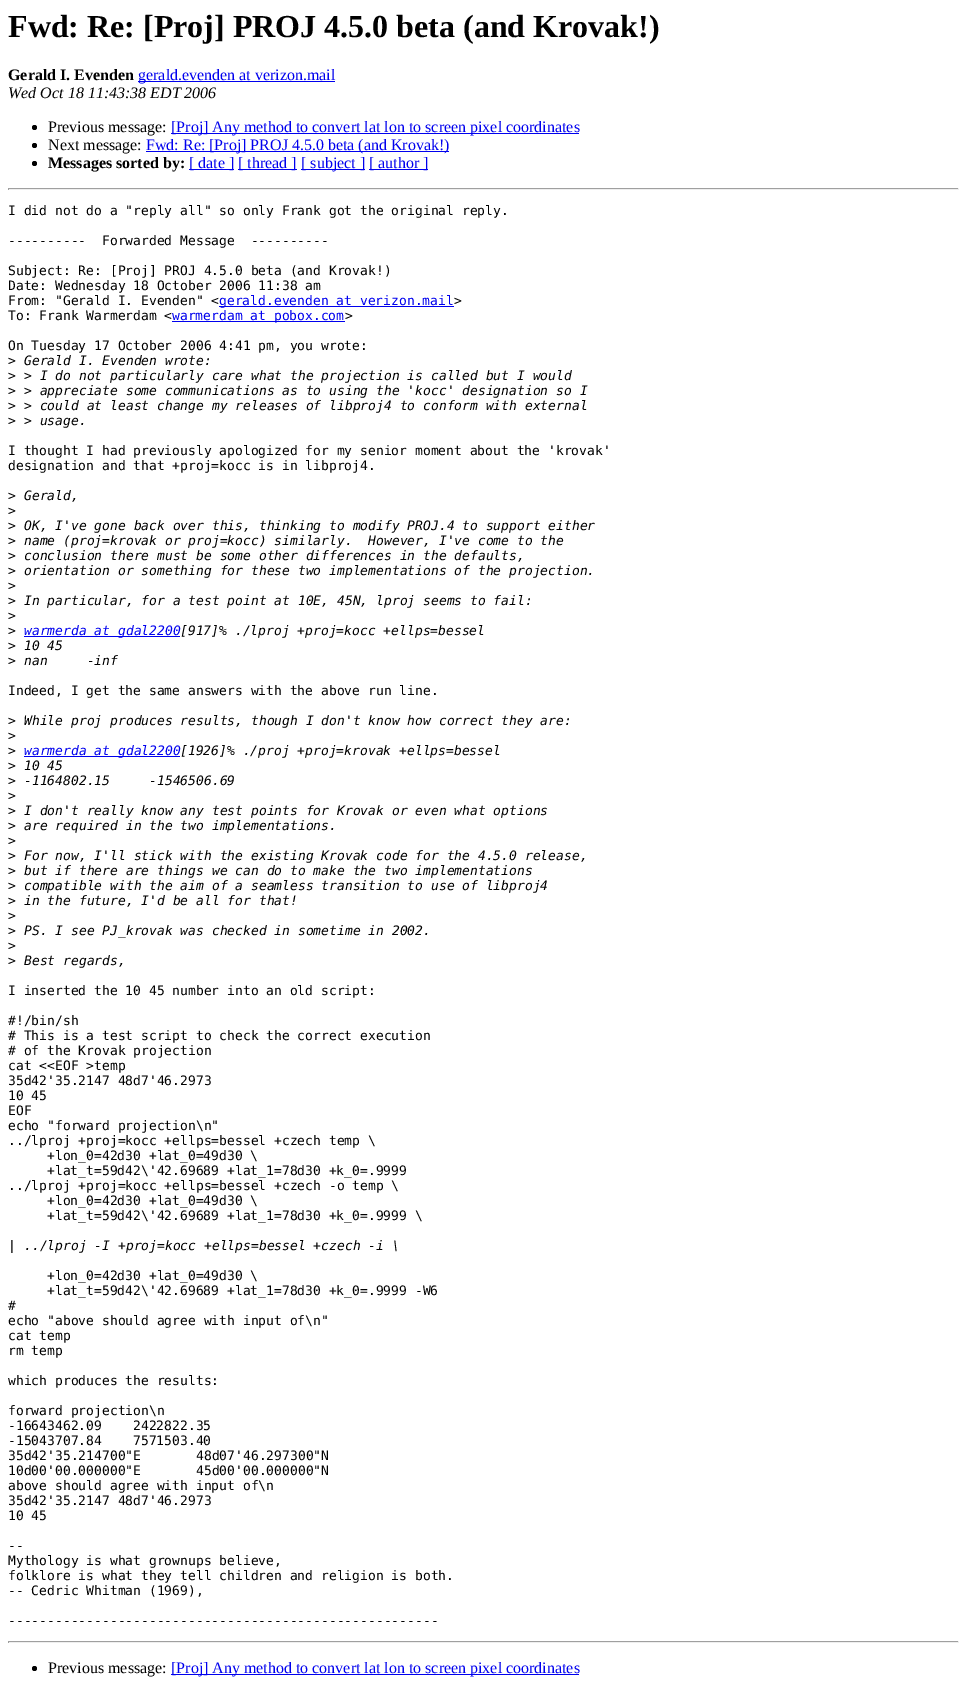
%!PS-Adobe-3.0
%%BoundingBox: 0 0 967 1682
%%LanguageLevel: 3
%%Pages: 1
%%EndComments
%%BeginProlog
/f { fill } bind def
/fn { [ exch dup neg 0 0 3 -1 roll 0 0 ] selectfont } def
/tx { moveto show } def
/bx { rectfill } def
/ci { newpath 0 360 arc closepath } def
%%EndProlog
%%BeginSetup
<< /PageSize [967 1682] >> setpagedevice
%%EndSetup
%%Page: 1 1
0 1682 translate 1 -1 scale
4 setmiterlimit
1 setgray
0 0 967 1682 bx
/LiberationSerif-Bold 32 fn
0 setgray
(Fwd: Re: [Proj] PROJ 4.5.0 beta \(and Krovak!\)) 8 37 tx
/LiberationSerif-Bold 16 fn
(Gerald I. Evenden) 8 80 tx
0 0 0.933 setrgbcolor
138 81 197 1 bx
/LiberationSerif-Regular 16 fn
(gerald.evenden at verizon.mail) 138 80 tx
/LiberationSerif-Italic 16 fn
0 setgray
(Wed Oct 18 11:43:38 EDT 2006) 8 98 tx
34.5 127.5 2.5 ci f
/LiberationSerif-Regular 16 fn
(Previous message:) 48 132 tx
0 0 0.933 setrgbcolor
171 133 408 1 bx
([Proj] Any method to convert lat lon to screen pixel coordinates) 171 132 tx
0 setgray
34.5 145.5 2.5 ci f
(Next message:) 48 150 tx
0 0 0.933 setrgbcolor
146 151 303 1 bx
(Fwd: Re: [Proj] PROJ 4.5.0 beta \(and Krovak!\)) 146 150 tx
0 setgray
34.5 163.5 2.5 ci f
/LiberationSerif-Bold 16 fn
(Messages sorted by:) 48 168 tx
0 0 0.933 setrgbcolor
189 169 45 1 bx
/LiberationSerif-Regular 16 fn
([ date ]) 189 168 tx
238 169 59 1 bx
([ thread ]) 238 168 tx
301 169 64 1 bx
([ subject ]) 301 168 tx
369 169 59 1 bx
([ author ]) 369 168 tx
0.624 setgray
8 188 951 1 bx
0.933 setgray
958 188 1 2 bx
8 189 951 1 bx
0.624 setgray
8 188 1 2 bx
/DejaVuSansMono-Regular 13 fn
0 setgray
(I did not do a "reply all" so only Frank got the original reply.) 8 215 tx
(----------  Forwarded Message  ----------) 8 245 tx
(Subject: Re: [Proj] PROJ 4.5.0 beta \(and Krovak!\)) 8 275 tx
(Date: Wednesday 18 October 2006 11:38 am) 8 290 tx
(From: "Gerald I. Evenden" <) 8 305 tx
0 0 0.933 setrgbcolor
219 306 235 1 bx
(gerald.evenden at verizon.mail) 219 305 tx
0 setgray
(>) 454 305 tx
(To: Frank Warmerdam <) 8 320 tx
0 0 0.933 setrgbcolor
172 321 173 1 bx
(warmerdam at pobox.com) 172 320 tx
0 setgray
(>) 345 320 tx
(On Tuesday 17 October 2006 4:41 pm, you wrote:) 8 350 tx
(>) 8 365 tx
/DejaVuSansMono-Italic 13 fn
(Gerald I. Evenden wrote:) 24 365 tx
/DejaVuSansMono-Regular 13 fn
(>) 8 380 tx
/DejaVuSansMono-Italic 13 fn
(> I do not particularly care what the projection is called but I would) 24 380 tx
/DejaVuSansMono-Regular 13 fn
(>) 8 395 tx
/DejaVuSansMono-Italic 13 fn
(> appreciate some communications as to using the 'kocc' designation so I) 24 395 tx
/DejaVuSansMono-Regular 13 fn
(>) 8 410 tx
/DejaVuSansMono-Italic 13 fn
(> could at least change my releases of libproj4 to conform with external) 24 410 tx
/DejaVuSansMono-Regular 13 fn
(>) 8 425 tx
/DejaVuSansMono-Italic 13 fn
(> usage.) 24 425 tx
/DejaVuSansMono-Regular 13 fn
(I thought I had previously apologized for my senior moment about the 'krovak') 8 455 tx
(designation and that +proj=kocc is in libproj4.) 8 470 tx
(>) 8 500 tx
/DejaVuSansMono-Italic 13 fn
(Gerald,) 24 500 tx
/DejaVuSansMono-Regular 13 fn
(>) 8 515 tx
(>) 8 530 tx
/DejaVuSansMono-Italic 13 fn
(OK, I've gone back over this, thinking to modify PROJ.4 to support either) 24 530 tx
/DejaVuSansMono-Regular 13 fn
(>) 8 545 tx
/DejaVuSansMono-Italic 13 fn
(name \(proj=krovak or proj=kocc\) similarly.  However, I've come to the) 24 545 tx
/DejaVuSansMono-Regular 13 fn
(>) 8 560 tx
/DejaVuSansMono-Italic 13 fn
(conclusion there must be some other differences in the defaults,) 24 560 tx
/DejaVuSansMono-Regular 13 fn
(>) 8 575 tx
/DejaVuSansMono-Italic 13 fn
(orientation or something for these two implementations of the projection.) 24 575 tx
/DejaVuSansMono-Regular 13 fn
(>) 8 590 tx
(>) 8 605 tx
/DejaVuSansMono-Italic 13 fn
(In particular, for a test point at 10E, 45N, lproj seems to fail:) 24 605 tx
/DejaVuSansMono-Regular 13 fn
(>) 8 620 tx
(>) 8 635 tx
0 0 0.933 setrgbcolor
24 636 156 1 bx
/DejaVuSansMono-Italic 13 fn
(warmerda at gdal2200) 24 635 tx
0 setgray
([917]% ./lproj +proj=kocc +ellps=bessel) 180 635 tx
/DejaVuSansMono-Regular 13 fn
(>) 8 650 tx
/DejaVuSansMono-Italic 13 fn
(10 45) 24 650 tx
/DejaVuSansMono-Regular 13 fn
(>) 8 665 tx
/DejaVuSansMono-Italic 13 fn
(nan     -inf) 24 665 tx
/DejaVuSansMono-Regular 13 fn
(Indeed, I get the same answers with the above run line.) 8 695 tx
(>) 8 725 tx
/DejaVuSansMono-Italic 13 fn
(While proj produces results, though I don't know how correct they are:) 24 725 tx
/DejaVuSansMono-Regular 13 fn
(>) 8 740 tx
(>) 8 755 tx
0 0 0.933 setrgbcolor
24 756 156 1 bx
/DejaVuSansMono-Italic 13 fn
(warmerda at gdal2200) 24 755 tx
0 setgray
([1926]% ./proj +proj=krovak +ellps=bessel) 180 755 tx
/DejaVuSansMono-Regular 13 fn
(>) 8 770 tx
/DejaVuSansMono-Italic 13 fn
(10 45) 24 770 tx
/DejaVuSansMono-Regular 13 fn
(>) 8 785 tx
/DejaVuSansMono-Italic 13 fn
(-1164802.15     -1546506.69) 24 785 tx
/DejaVuSansMono-Regular 13 fn
(>) 8 800 tx
(>) 8 815 tx
/DejaVuSansMono-Italic 13 fn
(I don't really know any test points for Krovak or even what options) 24 815 tx
/DejaVuSansMono-Regular 13 fn
(>) 8 830 tx
/DejaVuSansMono-Italic 13 fn
(are required in the two implementations.) 24 830 tx
/DejaVuSansMono-Regular 13 fn
(>) 8 845 tx
(>) 8 860 tx
/DejaVuSansMono-Italic 13 fn
(For now, I'll stick with the existing Krovak code for the 4.5.0 release,) 24 860 tx
/DejaVuSansMono-Regular 13 fn
(>) 8 875 tx
/DejaVuSansMono-Italic 13 fn
(but if there are things we can do to make the two implementations) 24 875 tx
/DejaVuSansMono-Regular 13 fn
(>) 8 890 tx
/DejaVuSansMono-Italic 13 fn
(compatible with the aim of a seamless transition to use of libproj4) 24 890 tx
/DejaVuSansMono-Regular 13 fn
(>) 8 905 tx
/DejaVuSansMono-Italic 13 fn
(in the future, I'd be all for that!) 24 905 tx
/DejaVuSansMono-Regular 13 fn
(>) 8 920 tx
(>) 8 935 tx
/DejaVuSansMono-Italic 13 fn
(PS. I see PJ_krovak was checked in sometime in 2002.) 24 935 tx
/DejaVuSansMono-Regular 13 fn
(>) 8 950 tx
(>) 8 965 tx
/DejaVuSansMono-Italic 13 fn
(Best regards,) 24 965 tx
/DejaVuSansMono-Regular 13 fn
(I inserted the 10 45 number into an old script:) 8 995 tx
(#!/bin/sh) 8 1025 tx
(# This is a test script to check the correct execution) 8 1040 tx
(# of the Krovak projection) 8 1055 tx
(cat <<EOF >temp) 8 1070 tx
(35d42'35.2147 48d7'46.2973) 8 1085 tx
(10 45) 8 1100 tx
(EOF) 8 1115 tx
(echo "forward projection\\n") 8 1130 tx
(../lproj +proj=kocc +ellps=bessel +czech temp \\) 8 1145 tx
(+lon_0=42d30 +lat_0=49d30 \\) 47 1160 tx
(+lat_t=59d42\\'42.69689 +lat_1=78d30 +k_0=.9999) 47 1175 tx
(../lproj +proj=kocc +ellps=bessel +czech -o temp \\) 8 1190 tx
(+lon_0=42d30 +lat_0=49d30 \\) 47 1205 tx
(+lat_t=59d42\\'42.69689 +lat_1=78d30 +k_0=.9999 \\) 47 1220 tx
(|) 8 1250 tx
/DejaVuSansMono-Italic 13 fn
(../lproj -I +proj=kocc +ellps=bessel +czech -i \\) 24 1250 tx
/DejaVuSansMono-Regular 13 fn
(+lon_0=42d30 +lat_0=49d30 \\) 47 1280 tx
(+lat_t=59d42\\'42.69689 +lat_1=78d30 +k_0=.9999 -W6) 47 1295 tx
(#) 8 1310 tx
(echo "above should agree with input of\\n") 8 1325 tx
(cat temp) 8 1340 tx
(rm temp) 8 1355 tx
(which produces the results:) 8 1385 tx
(forward projection\\n) 8 1415 tx
(-16643462.09) 8 1430 tx
(2422822.35) 133 1430 tx
(-15043707.84) 8 1445 tx
(7571503.40) 133 1445 tx
(35d42'35.214700"E) 8 1460 tx
(48d07'46.297300"N) 196 1460 tx
(10d00'00.000000"E) 8 1475 tx
(45d00'00.000000"N) 196 1475 tx
(above should agree with input of\\n) 8 1490 tx
(35d42'35.2147 48d7'46.2973) 8 1505 tx
(10 45) 8 1520 tx
(--) 8 1550 tx
(Mythology is what grownups believe,) 8 1565 tx
(folklore is what they tell children and religion is both.) 8 1580 tx
(-- Cedric Whitman \(1969\),) 8 1595 tx
(-------------------------------------------------------) 8 1625 tx
0.624 setgray
8 1641 951 1 bx
0.933 setgray
958 1641 1 2 bx
8 1642 951 1 bx
0.624 setgray
8 1641 1 2 bx
0 setgray
34.5 1668.5 2.5 ci f
/LiberationSerif-Regular 16 fn
(Previous message:) 48 1673 tx
0 0 0.933 setrgbcolor
171 1674 408 1 bx
([Proj] Any method to convert lat lon to screen pixel coordinates) 171 1673 tx
showpage
%%EOF
